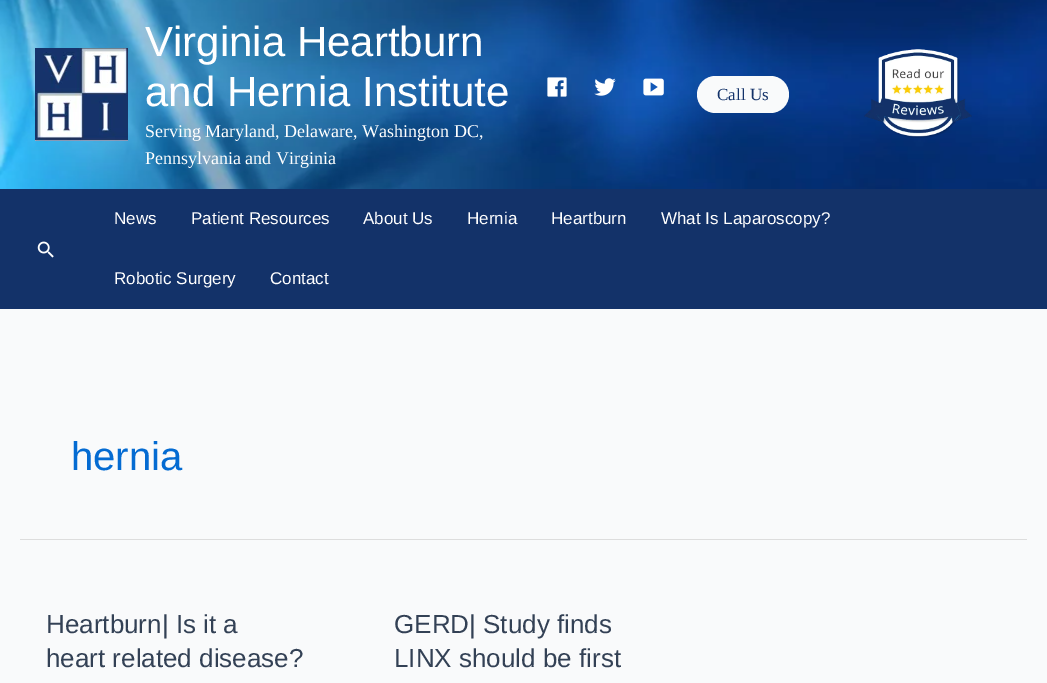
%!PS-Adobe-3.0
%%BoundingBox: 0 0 1047 683
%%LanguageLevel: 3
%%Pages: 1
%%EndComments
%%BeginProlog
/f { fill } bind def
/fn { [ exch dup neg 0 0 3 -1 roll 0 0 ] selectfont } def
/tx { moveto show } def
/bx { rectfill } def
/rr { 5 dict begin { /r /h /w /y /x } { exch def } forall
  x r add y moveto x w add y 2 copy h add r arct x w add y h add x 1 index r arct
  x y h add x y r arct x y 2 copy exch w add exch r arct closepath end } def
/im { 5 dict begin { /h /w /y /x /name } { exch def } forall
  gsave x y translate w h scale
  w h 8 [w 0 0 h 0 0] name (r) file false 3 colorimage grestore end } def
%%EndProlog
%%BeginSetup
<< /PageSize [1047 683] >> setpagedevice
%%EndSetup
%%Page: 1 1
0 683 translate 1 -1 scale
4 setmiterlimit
0.976 0.98 0.984 setrgbcolor
0 0 1047 683 bx
(image0.raw) 0 0 1047 189 im
(image1.raw) 35 48 93 93 im
/LiberationSans-Regular 42 fn
1 setgray
(Virginia Heartburn) 145 56 tx
(and Hernia Institute) 145 106 tx
/LiberationSerif-Regular 18 fn
(Serving Maryland, Delaware, Washington DC,) 145 137 tx
(Pennsylvania and Virginia) 145 164 tx
(image2.raw) 547 77 20 20 im
(image3.raw) 594 78 22 18 im
(image4.raw) 643 78 21 18 im
0.976 0.98 0.984 setrgbcolor
697 76 92 37 18.5 rr f
/LiberationSerif-Regular 17 fn
0.075 0.196 0.412 setrgbcolor
(Call Us) 717 100 tx
(image5.raw) 864 49 108 89 im
0 189 1047 120 bx
(image6.raw) 37 241 17 17 im
/LiberationSans-Regular 17 fn
1 setgray
(News) 114 224 tx
(Patient Resources) 191 224 tx
(About Us) 363 224 tx
(Hernia) 467 224 tx
(Heartburn) 551 224 tx
(What Is Laparoscopy?) 661 224 tx
(Robotic Surgery) 114 284 tx
(Contact) 270 284 tx
0.867 setgray
20 539 1007 1 bx
/LiberationSans-Regular 40 fn
0.016 0.42 0.824 setrgbcolor
(hernia) 71 470 tx
/LiberationSans-Regular 26 fn
0.2 0.255 0.333 setrgbcolor
(Heartburn| Is it a) 46 633 tx
(heart related disease?) 46 667 tx
(GERD| Study finds) 394 633 tx
(LINX should be first) 394 667 tx
showpage
%%EOF
